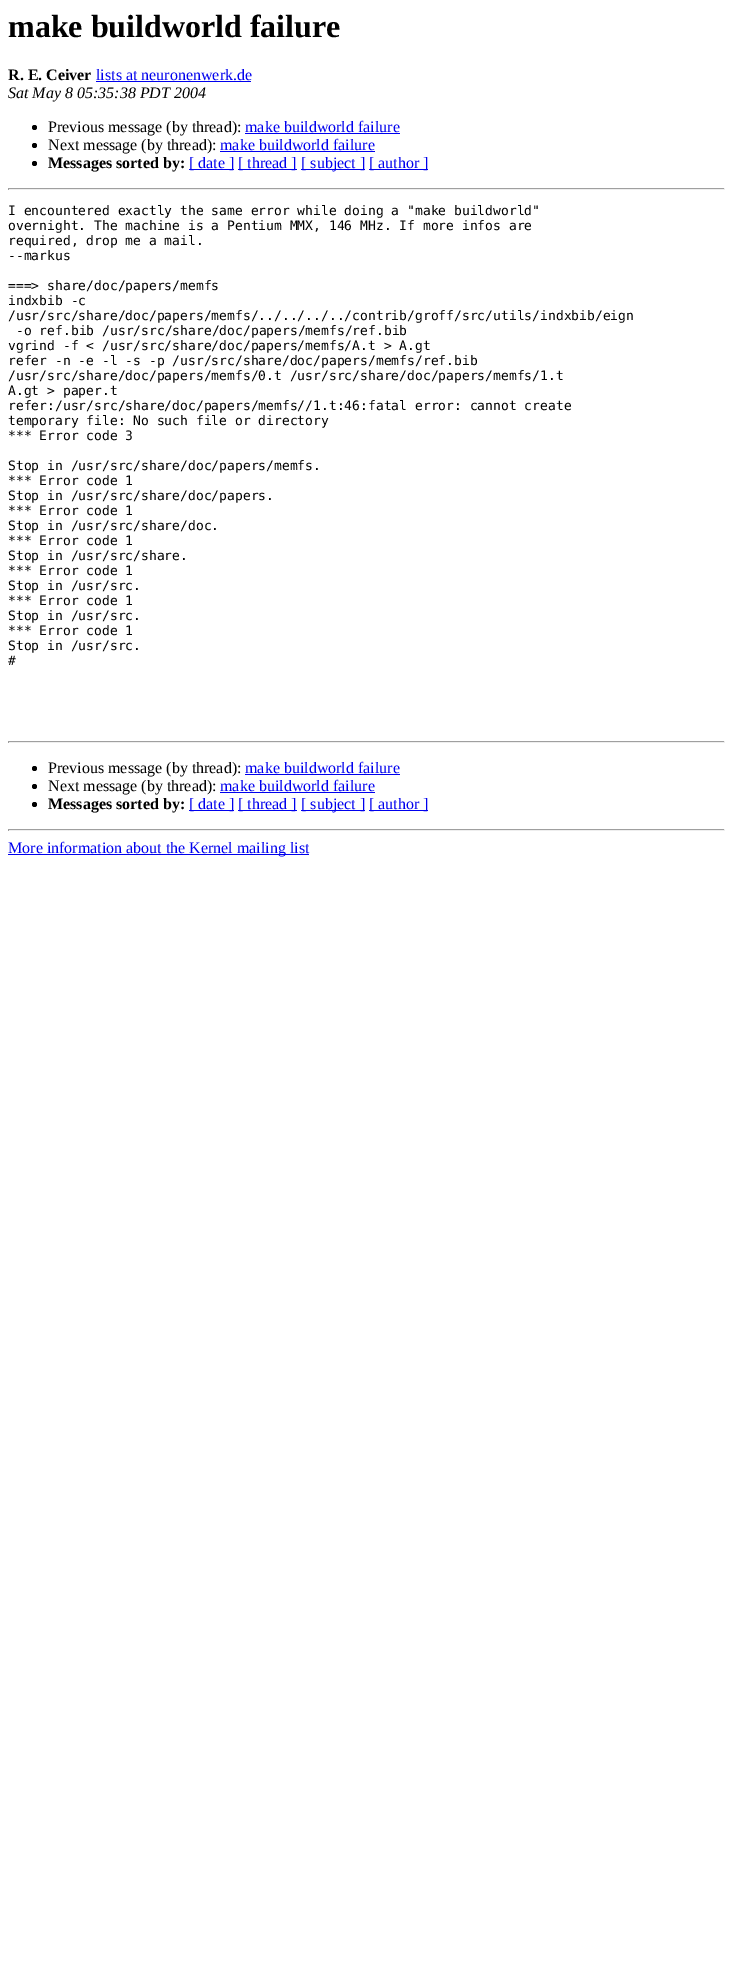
%!PS-Adobe-3.0
%%BoundingBox: 0 0 733 1971
%%LanguageLevel: 3
%%Pages: 1
%%EndComments
%%BeginProlog
/f { fill } bind def
/fn { [ exch dup neg 0 0 3 -1 roll 0 0 ] selectfont } def
/tx { moveto show } def
/bx { rectfill } def
/ci { newpath 0 360 arc closepath } def
%%EndProlog
%%BeginSetup
<< /PageSize [733 1971] >> setpagedevice
%%EndSetup
%%Page: 1 1
0 1971 translate 1 -1 scale
4 setmiterlimit
1 setgray
0 0 733 1971 bx
/LiberationSerif-Bold 32 fn
0 setgray
(make buildworld failure) 8 37 tx
/LiberationSerif-Bold 16 fn
(R. E. Ceiver) 8 80 tx
/LiberationSerif-Regular 16 fn
0 0 0.933 setrgbcolor
(lists at neuronenwerk.de) 96 80 tx
96 81 155 1 bx
/LiberationSerif-Italic 16 fn
0 setgray
(Sat May 8 05:35:38 PDT 2004) 8 98 tx
34.5 127.5 2.5 ci f
/LiberationSerif-Regular 16 fn
(Previous message \(by thread\):) 48 132 tx
0 0 0.933 setrgbcolor
(make buildworld failure) 245 132 tx
245 133 155 1 bx
0 setgray
34.5 145.5 2.5 ci f
(Next message \(by thread\):) 48 150 tx
0 0 0.933 setrgbcolor
(make buildworld failure) 220 150 tx
220 151 155 1 bx
0 setgray
34.5 163.5 2.5 ci f
/LiberationSerif-Bold 16 fn
(Messages sorted by:) 48 168 tx
0 0 0.933 setrgbcolor
189 169 45 1 bx
/LiberationSerif-Regular 16 fn
([ date ]) 189 168 tx
238 169 59 1 bx
([ thread ]) 238 168 tx
301 169 64 1 bx
([ subject ]) 301 168 tx
369 169 59 1 bx
([ author ]) 369 168 tx
0.624 setgray
8 188 717 1 bx
0.933 setgray
724 188 1 2 bx
8 189 717 1 bx
0.624 setgray
8 188 1 2 bx
/DejaVuSansMono-Regular 13 fn
0 setgray
(I encountered exactly the same error while doing a "make buildworld") 8 215 tx
(overnight. The machine is a Pentium MMX, 146 MHz. If more infos are) 8 230 tx
(required, drop me a mail.) 8 245 tx
(--markus) 8 260 tx
(===> share/doc/papers/memfs) 8 290 tx
(indxbib -c) 8 305 tx
(/usr/src/share/doc/papers/memfs/../../../../contrib/groff/src/utils/indxbib/eign) 8 320 tx
(-o ref.bib /usr/src/share/doc/papers/memfs/ref.bib) 16 335 tx
(vgrind -f < /usr/src/share/doc/papers/memfs/A.t > A.gt) 8 350 tx
(refer -n -e -l -s -p /usr/src/share/doc/papers/memfs/ref.bib) 8 365 tx
(/usr/src/share/doc/papers/memfs/0.t /usr/src/share/doc/papers/memfs/1.t) 8 380 tx
(A.gt > paper.t) 8 395 tx
(refer:/usr/src/share/doc/papers/memfs//1.t:46:fatal error: cannot create) 8 410 tx
(temporary file: No such file or directory) 8 425 tx
(*** Error code 3) 8 440 tx
(Stop in /usr/src/share/doc/papers/memfs.) 8 470 tx
(*** Error code 1) 8 485 tx
(Stop in /usr/src/share/doc/papers.) 8 500 tx
(*** Error code 1) 8 515 tx
(Stop in /usr/src/share/doc.) 8 530 tx
(*** Error code 1) 8 545 tx
(Stop in /usr/src/share.) 8 560 tx
(*** Error code 1) 8 575 tx
(Stop in /usr/src.) 8 590 tx
(*** Error code 1) 8 605 tx
(Stop in /usr/src.) 8 620 tx
(*** Error code 1) 8 635 tx
(Stop in /usr/src.) 8 650 tx
(#) 8 665 tx
0.624 setgray
8 741 717 1 bx
0.933 setgray
724 741 1 2 bx
8 742 717 1 bx
0.624 setgray
8 741 1 2 bx
0 setgray
34.5 768.5 2.5 ci f
/LiberationSerif-Regular 16 fn
(Previous message \(by thread\):) 48 773 tx
0 0 0.933 setrgbcolor
(make buildworld failure) 245 773 tx
245 774 155 1 bx
0 setgray
34.5 786.5 2.5 ci f
(Next message \(by thread\):) 48 791 tx
0 0 0.933 setrgbcolor
(make buildworld failure) 220 791 tx
220 792 155 1 bx
0 setgray
34.5 804.5 2.5 ci f
/LiberationSerif-Bold 16 fn
(Messages sorted by:) 48 809 tx
0 0 0.933 setrgbcolor
189 810 45 1 bx
/LiberationSerif-Regular 16 fn
([ date ]) 189 809 tx
238 810 59 1 bx
([ thread ]) 238 809 tx
301 810 64 1 bx
([ subject ]) 301 809 tx
369 810 59 1 bx
([ author ]) 369 809 tx
0.624 setgray
8 829 717 1 bx
0.933 setgray
724 829 1 2 bx
8 830 717 1 bx
0.624 setgray
8 829 1 2 bx
0 0 0.933 setrgbcolor
8 854 301 1 bx
(More information about the Kernel mailing list) 8 853 tx
showpage
%%EOF
